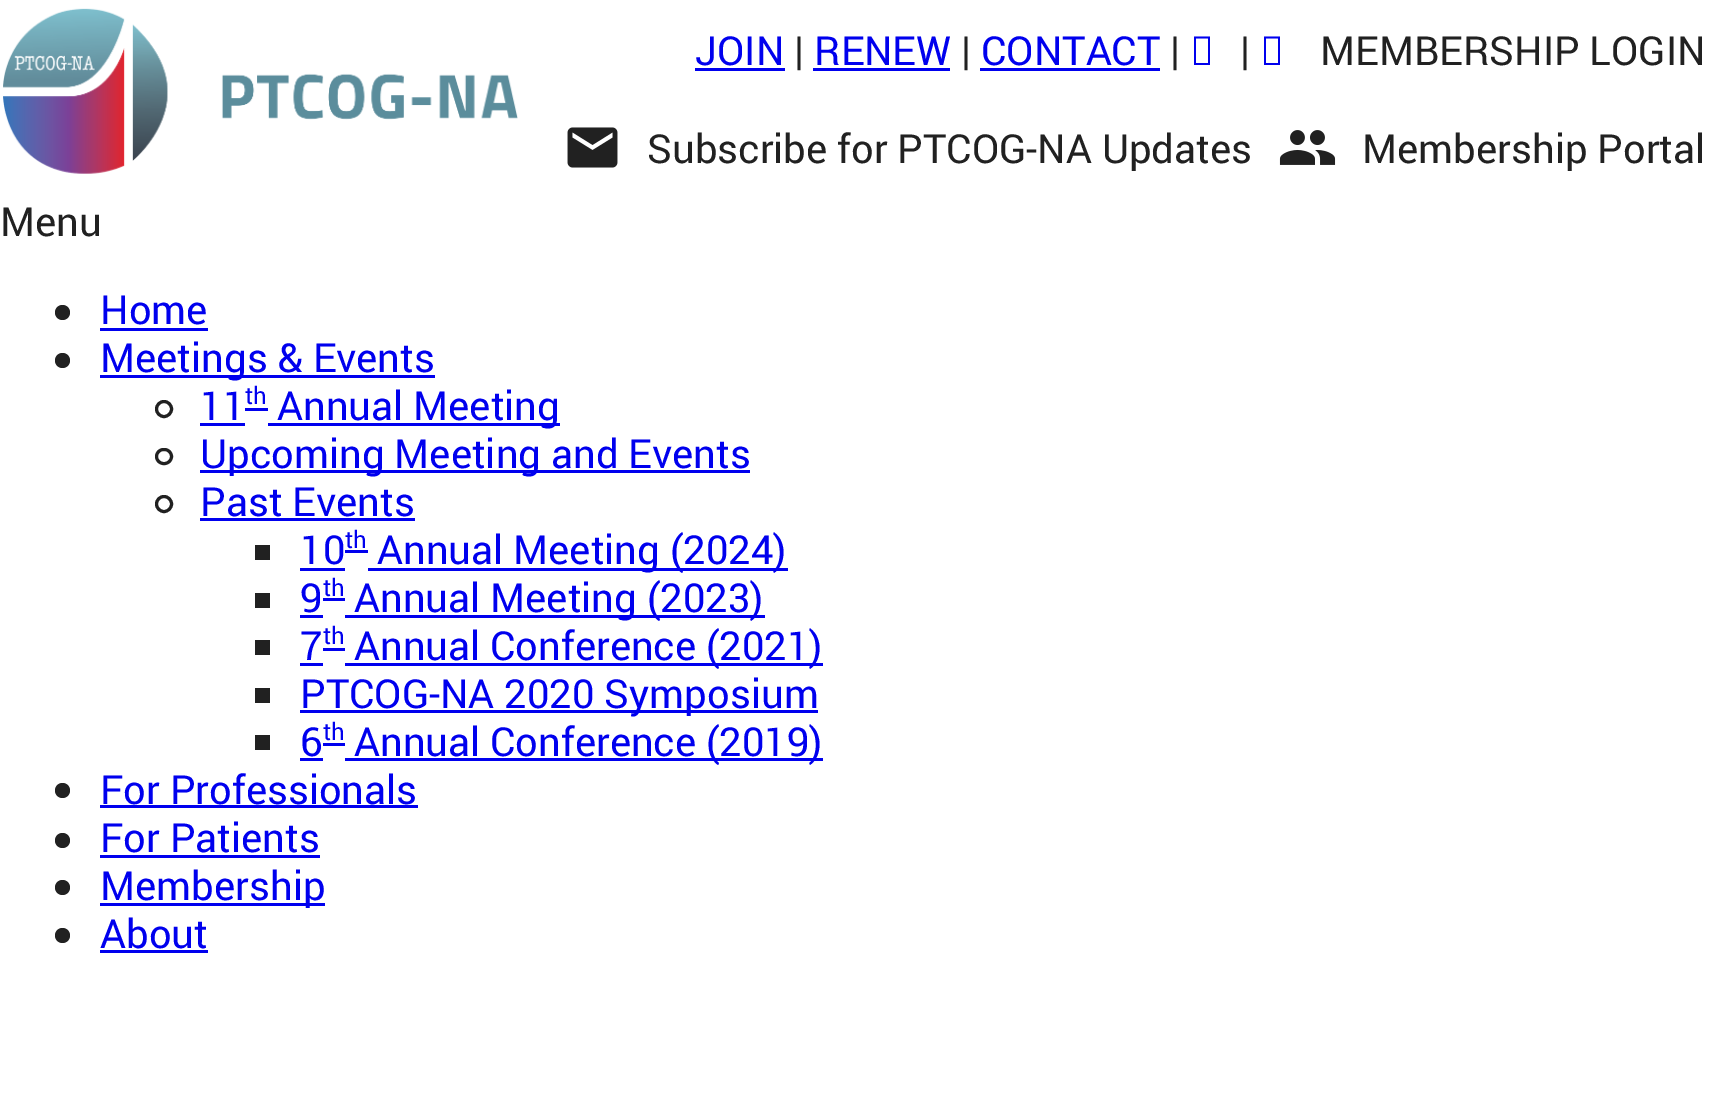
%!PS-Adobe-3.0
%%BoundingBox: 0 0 1729 1120
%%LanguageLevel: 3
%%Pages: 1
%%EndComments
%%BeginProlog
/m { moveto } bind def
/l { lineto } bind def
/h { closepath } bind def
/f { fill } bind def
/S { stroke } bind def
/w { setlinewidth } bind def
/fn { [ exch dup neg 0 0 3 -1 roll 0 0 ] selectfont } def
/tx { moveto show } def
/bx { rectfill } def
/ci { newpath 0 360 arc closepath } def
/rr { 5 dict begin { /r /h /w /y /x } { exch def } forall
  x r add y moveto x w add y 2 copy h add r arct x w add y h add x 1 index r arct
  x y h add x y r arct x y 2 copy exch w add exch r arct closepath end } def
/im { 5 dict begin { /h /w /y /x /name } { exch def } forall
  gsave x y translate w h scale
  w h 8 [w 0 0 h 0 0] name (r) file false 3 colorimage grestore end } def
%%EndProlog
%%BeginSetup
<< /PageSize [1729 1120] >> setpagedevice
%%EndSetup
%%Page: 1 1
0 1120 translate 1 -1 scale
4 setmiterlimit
1 setgray
0 0 1729 1120 bx
(image0.raw) 3 8 515 166 im
/Roboto-Regular 40 fn
0 0 0.933 setrgbcolor
(JOIN) 695 65 tx
695 68 90 3 bx
0.129 setgray
(|) 794 65 tx
0 0 0.933 setrgbcolor
(RENEW) 814 65 tx
813 68 137 3 bx
0.129 setgray
(|) 961 65 tx
0 0 0.933 setrgbcolor
(CONTACT) 981 65 tx
980 68 180 3 bx
0.129 setgray
(|) 1170 65 tx
0 0 0.933 setrgbcolor
1194 65 m 1194 36.5 l 1210 36.5 l 1210 65 l h 1196 63 m 1208 63 l 1208 38.5 l 1196 38.5 l h f
0.129 setgray
(|) 1240 65 tx
0 0 0.933 setrgbcolor
1264 65 m 1264 36.5 l 1280 36.5 l 1280 65 l h 1266 63 m 1278 63 l 1278 38.5 l 1266 38.5 l h f
0.129 setgray
(MEMBERSHIP LOGIN) 1320 65 tx
(image1.raw) 567 127 51 41 im
(Subscribe for PTCOG-NA Updates) 647 163 tx
(image2.raw) 1279 130 57 35 im
(Membership Portal) 1362 163 tx
(Menu) 0 236 tx
62.5 312.5 7.5 ci f
0 0 0.933 setrgbcolor
(Home) 100 324 tx
100 328 108 3 bx
0.129 setgray
62.5 360.5 7.5 ci f
0 0 0.933 setrgbcolor
100 375 335 3 bx
(Meetings & Events) 100 372 tx
0.129 setgray
3 w
164 409 7.5 ci S
0 0 0.933 setrgbcolor
(11) 200 420 tx
200 423 45 3 bx
/Roboto-Regular 24 fn
(th) 245 404 tx
268 423 292 3 bx
/Roboto-Regular 40 fn
(Annual Meeting) 277 420 tx
245 408 23 3 bx
0.129 setgray
156.5 449.5 15 14 7 rr S
0 0 0.933 setrgbcolor
200 470 550 3 bx
(Upcoming Meeting and Events) 200 468 tx
0.129 setgray
164 504 7.5 ci S
0 0 0.933 setrgbcolor
(Past Events) 200 516 tx
200 518 215 3 bx
0.129 setgray
255 545 15 15 bx
0 0 0.933 setrgbcolor
(10) 300 564 tx
300 568 45 3 bx
345 550 23 3 bx
/Roboto-Regular 24 fn
(th) 345 548 tx
368 568 420 3 bx
/Roboto-Regular 40 fn
(Annual Meeting \(2024\)) 377 564 tx
0.129 setgray
255 593 15 15 bx
0 0 0.933 setrgbcolor
(9) 300 612 tx
300 615 23 3 bx
323 598 22 3 bx
/Roboto-Regular 24 fn
(th) 323 596 tx
345 615 420 3 bx
/Roboto-Regular 40 fn
(Annual Meeting \(2023\)) 354 612 tx
0.129 setgray
255 640 15 15 bx
0 0 0.933 setrgbcolor
(7) 300 660 tx
300 663 23 3 bx
323 648 22 3 bx
/Roboto-Regular 24 fn
(th) 323 644 tx
345 663 478 3 bx
/Roboto-Regular 40 fn
(Annual Conference \(2021\)) 354 660 tx
0.129 setgray
255 688 15 15 bx
0 0 0.933 setrgbcolor
300 710 518 3 bx
(PTCOG-NA 2020 Symposium) 300 708 tx
0.129 setgray
255 735 15 15 bx
0 0 0.933 setrgbcolor
(6) 300 756 tx
300 758 23 3 bx
323 743 22 3 bx
/Roboto-Regular 24 fn
(th) 323 740 tx
345 758 478 3 bx
/Roboto-Regular 40 fn
(Annual Conference \(2019\)) 354 756 tx
0.129 setgray
62.5 790.5 7.5 ci f
0 0 0.933 setrgbcolor
(For Professionals) 100 804 tx
100 805 318 3 bx
0.129 setgray
62.5 840.5 7.5 ci f
0 0 0.933 setrgbcolor
(For Patients) 100 852 tx
100 855 220 3 bx
0.129 setgray
62.5 887.5 7.5 ci f
0 0 0.933 setrgbcolor
100 903 225 3 bx
(Membership) 100 900 tx
0.129 setgray
62.5 935.5 7.5 ci f
0 0 0.933 setrgbcolor
(About) 100 948 tx
100 950 108 3 bx
showpage
%%EOF
